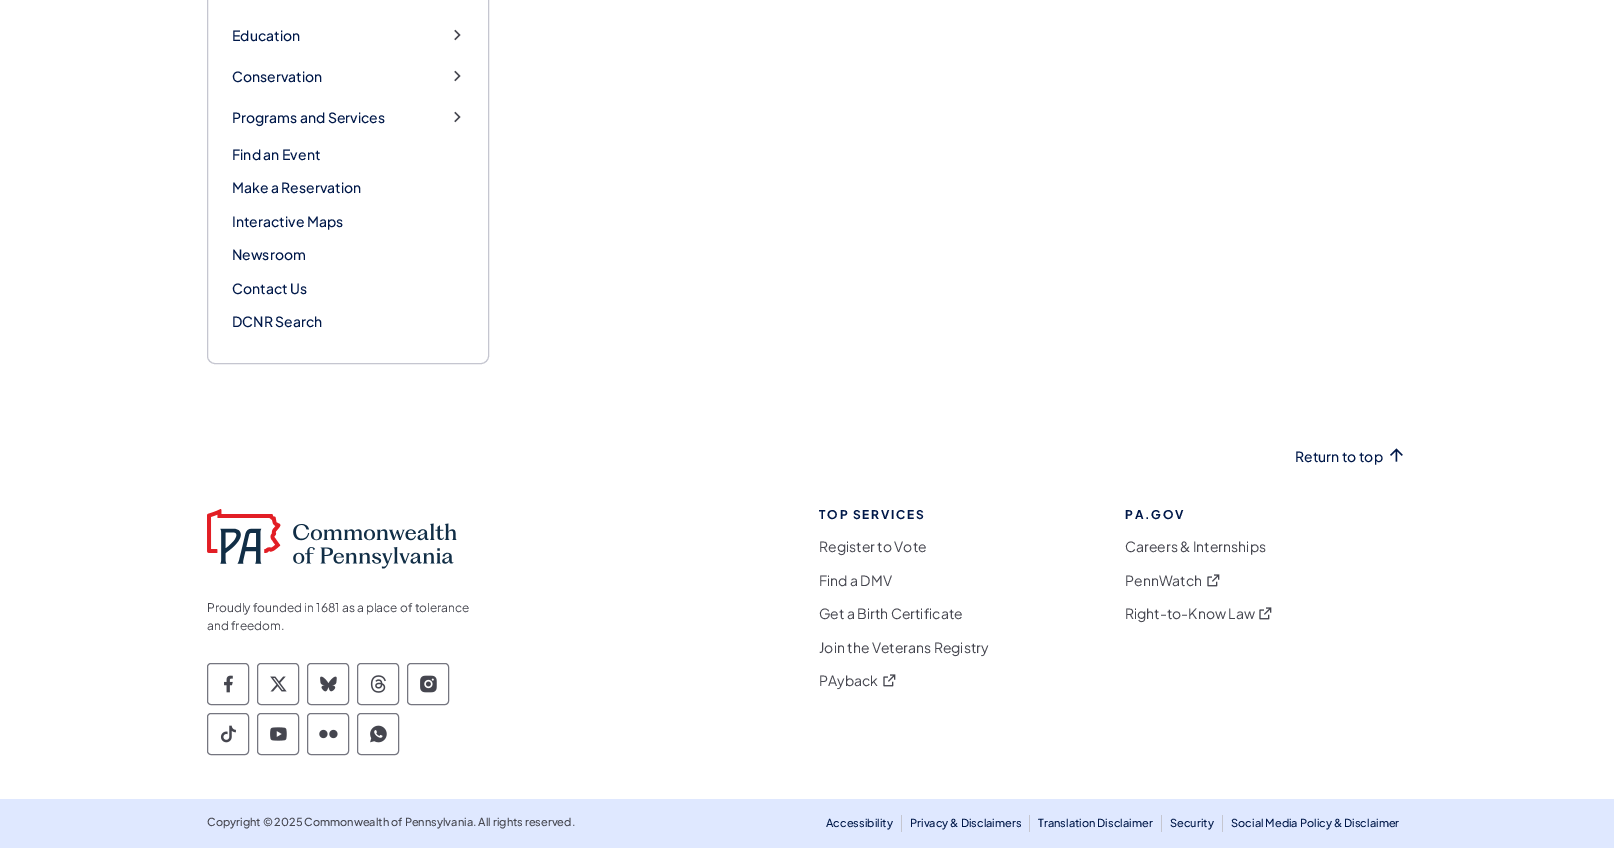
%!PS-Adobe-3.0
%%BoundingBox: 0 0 1614 848
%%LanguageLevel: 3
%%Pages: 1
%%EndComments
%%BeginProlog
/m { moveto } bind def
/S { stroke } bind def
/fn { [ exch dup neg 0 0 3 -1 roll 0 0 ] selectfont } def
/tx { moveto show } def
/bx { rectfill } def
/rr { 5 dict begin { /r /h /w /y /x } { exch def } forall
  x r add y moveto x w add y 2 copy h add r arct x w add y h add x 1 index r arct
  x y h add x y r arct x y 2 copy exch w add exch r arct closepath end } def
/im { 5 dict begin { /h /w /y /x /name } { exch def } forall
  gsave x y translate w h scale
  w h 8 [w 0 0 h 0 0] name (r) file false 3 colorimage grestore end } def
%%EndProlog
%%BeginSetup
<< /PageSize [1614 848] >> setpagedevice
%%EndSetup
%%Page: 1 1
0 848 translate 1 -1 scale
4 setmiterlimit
1 setgray
0 0 1614 848 bx
0.773 0.776 0.816 setrgbcolor
207.5 -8.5 281 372 7.5 rr S
/PlusJakartaSans-Medium 14 fn
0 0.094 0.286 setrgbcolor
(Education) 232 41 tx
(image0.raw) 454 29 7 12 im
(Conservation) 232 82 tx
(image0.raw) 454 70 7 12 im
(Programs and Services) 232 123 tx
(image0.raw) 454 111 7 12 im
(Find an Event) 232 160 tx
(Make a Reservation) 232 193 tx
(Interactive Maps) 232 227 tx
(Newsroom) 232 260 tx
(Contact Us) 232 294 tx
(DCNR Search) 232 327 tx
(Return to top) 1295 462 tx
(image1.raw) 1390 448 13 14 im
(image2.raw) 207 509 250 60 im
/PlusJakartaSans-Regular 12 fn
0.271 0.275 0.31 setrgbcolor
(Proudly founded in 1681 as a place of tolerance) 207 612 tx
(and freedom.) 207 630 tx
0.459 0.463 0.502 setrgbcolor
207.5 663.5 41 41 3.5 rr S
(image3.raw) 224 675 9 18 im
257.5 663.5 41 41 3.5 rr S
(image4.raw) 270 676 17 16 im
307.5 663.5 41 41 3.5 rr S
(image5.raw) 320 676 17 16 im
357.5 663.5 41 41 3.5 rr S
(image6.raw) 370 675 16 18 im
407.5 663.5 41 41 3.5 rr S
(image7.raw) 420 675 17 18 im
207.5 713.5 41 41 3.5 rr S
(image8.raw) 220 725 16 18 im
257.5 713.5 41 41 3.5 rr S
(image9.raw) 270 727 17 14 im
307.5 713.5 41 41 3.5 rr S
(image10.raw) 319 729 19 10 im
357.5 713.5 41 41 3.5 rr S
(image11.raw) 370 725 17 18 im
/PlusJakartaSans-Bold 12 fn
0 0.094 0.286 setrgbcolor
819 519 m 1.75 0 (TOP SERVICES) ashow
/PlusJakartaSans-Regular 14 fn
0.271 0.275 0.31 setrgbcolor
(Register to Vote) 819 552 tx
(Find a DMV) 819 586 tx
(Get a Birth Certificate) 819 619 tx
(Join the Veterans Registry) 819 653 tx
(PAyback) 819 686 tx
(image12.raw) 883 674 13 13 im
/PlusJakartaSans-Bold 12 fn
0 0.094 0.286 setrgbcolor
1125 519 m 1.75 0 (PA.GOV) ashow
/PlusJakartaSans-Regular 14 fn
0.271 0.275 0.31 setrgbcolor
(Careers & Internships) 1125 552 tx
(PennWatch) 1125 586 tx
(image12.raw) 1207 574 13 13 im
(Right-to-Know Law) 1125 619 tx
(image12.raw) 1259 607 13 13 im
0.875 0.91 1 setrgbcolor
0 799 1614 49 bx
/PlusJakartaSans-Medium 11 fn
0.271 0.275 0.31 setrgbcolor
(Copyright © 2025 Commonwealth of Pennsylvania. All rights reserved.) 207 826 tx
0.773 0.776 0.816 setrgbcolor
901 815 1 17 bx
0 0.094 0.286 setrgbcolor
(Accessibility) 826 827 tx
0.773 0.776 0.816 setrgbcolor
1029 815 1 17 bx
0 0.094 0.286 setrgbcolor
(Privacy & Disclaimers) 910 827 tx
0.773 0.776 0.816 setrgbcolor
1161 815 1 17 bx
0 0.094 0.286 setrgbcolor
(Translation Disclaimer) 1038 827 tx
0.773 0.776 0.816 setrgbcolor
1222 815 1 17 bx
0 0.094 0.286 setrgbcolor
(Security) 1170 827 tx
(Social Media Policy & Disclaimer) 1231 827 tx
showpage
%%EOF
